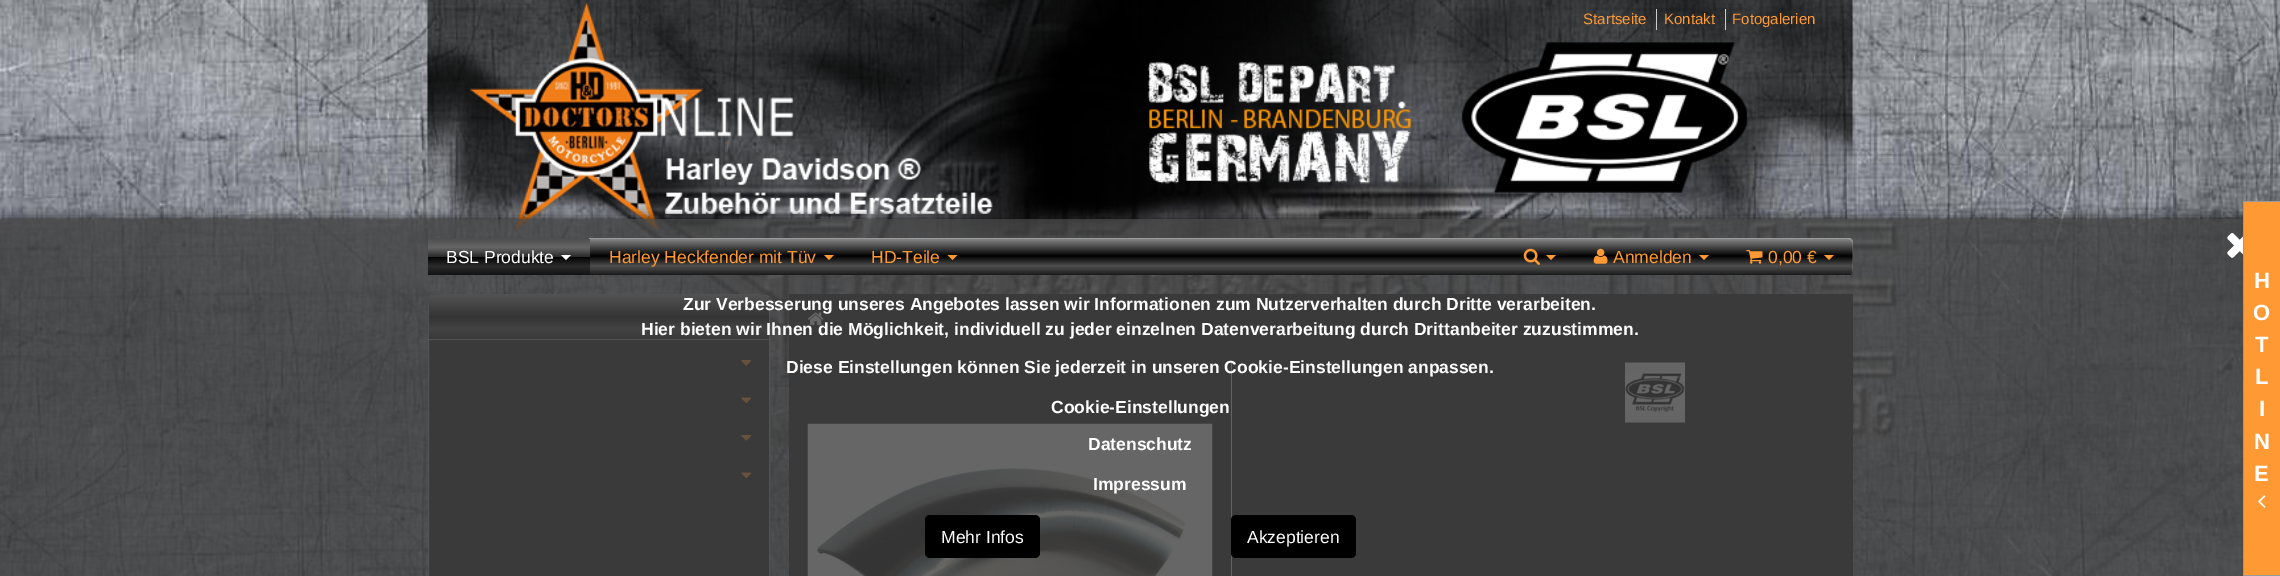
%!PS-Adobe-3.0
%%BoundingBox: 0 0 2280 576
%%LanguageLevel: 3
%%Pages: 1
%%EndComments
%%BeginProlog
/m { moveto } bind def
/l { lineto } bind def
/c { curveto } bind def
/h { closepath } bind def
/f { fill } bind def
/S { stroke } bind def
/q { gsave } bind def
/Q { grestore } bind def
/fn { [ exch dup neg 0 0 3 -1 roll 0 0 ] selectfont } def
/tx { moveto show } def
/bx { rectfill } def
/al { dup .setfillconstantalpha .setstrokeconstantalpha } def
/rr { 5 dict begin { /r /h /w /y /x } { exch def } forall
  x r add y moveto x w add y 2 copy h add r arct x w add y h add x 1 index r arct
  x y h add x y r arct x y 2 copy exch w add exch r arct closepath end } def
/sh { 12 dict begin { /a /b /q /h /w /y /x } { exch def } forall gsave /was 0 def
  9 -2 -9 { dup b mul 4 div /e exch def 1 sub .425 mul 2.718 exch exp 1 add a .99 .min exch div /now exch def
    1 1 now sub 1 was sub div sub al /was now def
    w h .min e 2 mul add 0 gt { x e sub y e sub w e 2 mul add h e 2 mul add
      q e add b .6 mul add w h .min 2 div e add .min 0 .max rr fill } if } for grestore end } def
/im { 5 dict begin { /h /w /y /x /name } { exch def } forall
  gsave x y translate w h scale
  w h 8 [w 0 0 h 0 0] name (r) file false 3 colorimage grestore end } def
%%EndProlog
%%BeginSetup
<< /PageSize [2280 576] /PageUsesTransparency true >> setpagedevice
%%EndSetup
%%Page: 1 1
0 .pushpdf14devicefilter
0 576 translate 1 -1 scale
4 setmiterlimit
1 setgray
0 0 2280 576 bx
(image0.raw) 0 0 2280 576 im
(image1.raw) 427 0 1426 238 im
/LiberationSans-Regular 15 fn
1 0.6 0.2 setrgbcolor
(Startseite) 1583 24 tx
0.8 setgray
1656 9 1 21 bx
1 0.6 0.2 setrgbcolor
(Kontakt) 1664 24 tx
0.8 setgray
1725 9 1 21 bx
1 0.6 0.2 setrgbcolor
(Fotogalerien) 1732 24 tx
0.133 setgray
441 294.5 m 757 294.5 l 764 294.5 769.5 300 769.5 307 c 769.5 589.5 l 428.5 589.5 l 428.5 307 l 428.5 300 434 294.5 441 294.5 c h q f Q
0.6 setgray
S
q 433 295 m 765 295 l 767 295 769 297 769 299 c 769 339 l 429 339 l 429 299 l 429 297 431 295 433 295 c h clip newpath
<< /ShadingType 2 /ColorSpace /DeviceRGB /Coords [599 295 599 339] /Extend [true true] /Function << /FunctionType 3 /Domain [0 1] /Functions [<< /FunctionType 2 /Domain [0 1] /C0 [0.584 0.584 0.584] /C1 [0.051 0.051 0.051] /N 1 >> << /FunctionType 2 /Domain [0 1] /C0 [0.051 0.051 0.051] /C1 [0.004 0.004 0.004] /N 1 >> << /FunctionType 2 /Domain [0 1] /C0 [0.004 0.004 0.004] /C1 [0.039 0.039 0.039] /N 1 >> << /FunctionType 2 /Domain [0 1] /C0 [0.039 0.039 0.039] /C1 [0.306 0.306 0.306] /N 1 >> << /FunctionType 2 /Domain [0 1] /C0 [0.306 0.306 0.306] /C1 [0.22 0.22 0.22] /N 1 >> << /FunctionType 2 /Domain [0 1] /C0 [0.22 0.22 0.22] /C1 [0.106 0.106 0.106] /N 1 >>] /Bounds [0.46 0.5 0.53 0.76 0.87] /Encode [0 1 0 1 0 1 0 1 0 1 0 1] >> >> shfill Q
429 339 340 1 bx
(image6.raw) 741 360 11 6 im
(image7.raw) 741 397 11 7 im
(image6.raw) 741 435 11 6 im
(image7.raw) 741 472 11 7 im
0.133 setgray
789 294 1064 282 bx
(image8.raw) 807 423 406 153 im
0.933 setgray
1231 363 1 213 bx
(image9.raw) 1625 362 60 61 im
(image11.raw) 807 312 17 13 im
q
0 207 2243 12 rectclip
0 setgray
0 219 2280 357 0 6 0.75 sh
Q
0.8 al
0.251 setgray
0 219 2243 357 bx
1 al
q 428 238 1425 37 5 rr clip newpath
<< /ShadingType 2 /ColorSpace /DeviceRGB /Coords [1140 237 1140 275] /Extend [true true] /Function << /FunctionType 3 /Domain [0 1] /Functions [<< /FunctionType 2 /Domain [0 1] /C0 [0.584 0.584 0.584] /C1 [0.051 0.051 0.051] /N 1 >> << /FunctionType 2 /Domain [0 1] /C0 [0.051 0.051 0.051] /C1 [0.004 0.004 0.004] /N 1 >> << /FunctionType 2 /Domain [0 1] /C0 [0.004 0.004 0.004] /C1 [0.039 0.039 0.039] /N 1 >> << /FunctionType 2 /Domain [0 1] /C0 [0.039 0.039 0.039] /C1 [0.306 0.306 0.306] /N 1 >> << /FunctionType 2 /Domain [0 1] /C0 [0.306 0.306 0.306] /C1 [0.22 0.22 0.22] /N 1 >> << /FunctionType 2 /Domain [0 1] /C0 [0.22 0.22 0.22] /C1 [0.106 0.106 0.106] /N 1 >>] /Bounds [0.46 0.5 0.53 0.76 0.87] /Encode [0 1 0 1 0 1 0 1 0 1 0 1] >> >> shfill Q
0.15 al
1 setgray
432 239 m 1848 239 l 1850 239 1852 241 1852 244 c 1852 271 l 1851 274 l 1852 273 1853 271 1853 270 c 1853 243 l 1853 240 1851 238 1848 238 c 433 238 l 430 238 428 240 428 243 c 428 244 l 428 241 430 239 432 239 c h f
1 al
q 433 238 m 585 238 l 588 238 590 240 590 243 c 590 275 l 428 275 l 428 243 l 428 240 430 238 433 238 c h clip newpath
<< /ShadingType 2 /ColorSpace /DeviceRGB /Coords [509 238 509 275] /Extend [true true] /Function << /FunctionType 3 /Domain [0 1] /Functions [<< /FunctionType 2 /Domain [0 1] /C0 [0.298 0.298 0.298] /C1 [0.349 0.349 0.349] /N 1 >> << /FunctionType 2 /Domain [0 1] /C0 [0.349 0.349 0.349] /C1 [0.4 0.4 0.4] /N 1 >> << /FunctionType 2 /Domain [0 1] /C0 [0.4 0.4 0.4] /C1 [0.278 0.278 0.278] /N 1 >> << /FunctionType 2 /Domain [0 1] /C0 [0.278 0.278 0.278] /C1 [0.173 0.173 0.173] /N 1 >> << /FunctionType 2 /Domain [0 1] /C0 [0.173 0.173 0.173] /C1 [0 0 0] /N 1 >> << /FunctionType 2 /Domain [0 1] /C0 [0 0 0] /C1 [0.067 0.067 0.067] /N 1 >> << /FunctionType 2 /Domain [0 1] /C0 [0.067 0.067 0.067] /C1 [0.169 0.169 0.169] /N 1 >> << /FunctionType 2 /Domain [0 1] /C0 [0.169 0.169 0.169] /C1 [0.11 0.11 0.11] /N 1 >> << /FunctionType 2 /Domain [0 1] /C0 [0.11 0.11 0.11] /C1 [0.075 0.075 0.075] /N 1 >>] /Bounds [0.12 0.25 0.39 0.5 0.51 0.6 0.76 0.91] /Encode [0 1 0 1 0 1 0 1 0 1 0 1 0 1 0 1 0 1] >> >> shfill Q
/LiberationSans-Regular 17.5 fn
(BSL Produkte) 446 263 tx
561 255 m 571 255 l 566 260 l h f
1 0.6 0.2 setrgbcolor
(Harley Heckfender mit Tüv) 609 263 tx
824 255 m 834 255 l 829 260 l h f
(HD-Teile) 871 263 tx
947.5 255 m 957.5 255 l 952.5 260 l h f
(image2.raw) 1523 248 17 17 im
1546 255 m 1556 255 l 1551 260 l h f
(image3.raw) 1593 248 15 16 im
(Anmelden) 1613 263 tx
1699 255 m 1709 255 l 1704 260 l h f
(image4.raw) 1746 250 17 14 im
(0,00 €) 1768 263 tx
1824 255 m 1834 255 l 1829 260 l h f
2244 202 36 373 bx
0.6 setgray
2243 201 37 1 bx
2243 575 37 1 bx
2243 201 1 375 bx
/LiberationSans-Bold 22 fn
1 setgray
(H) 2254 288 tx
(O) 2253 320 tx
(T) 2255 352 tx
(L) 2255 384 tx
(I) 2259 416 tx
(N) 2254 449 tx
(E) 2254 481 tx
(image5.raw) 2258 495 8 13 im
(image10.raw) 2227 233 16 25 im
/LiberationSans-Bold 17.5 fn
(Zur Verbesserung unseres Angebotes lassen wir Informationen zum Nutzerverhalten durch Dritte verarbeiten.) 683 310 tx
(Hier bieten wir Ihnen die Möglichkeit, individuell zu jeder einzelnen Datenverarbeitung durch Drittanbeiter zuzustimmen.) 641 335 tx
(Diese Einstellungen können Sie jederzeit in unseren Cookie-Einstellungen anpassen.) 786 373 tx
(Cookie-Einstellungen) 1051 413 tx
(Datenschutz) 1088 450 tx
(Impressum) 1093 490 tx
0 setgray
925 515 115 43 5 rr f
/LiberationSans-Regular 17.5 fn
1 setgray
(Mehr Infos) 941 543 tx
0 setgray
1231 515 125 43 5 rr f
1 setgray
(Akzeptieren) 1247 543 tx
.poppdf14devicefilter showpage
%%EOF
